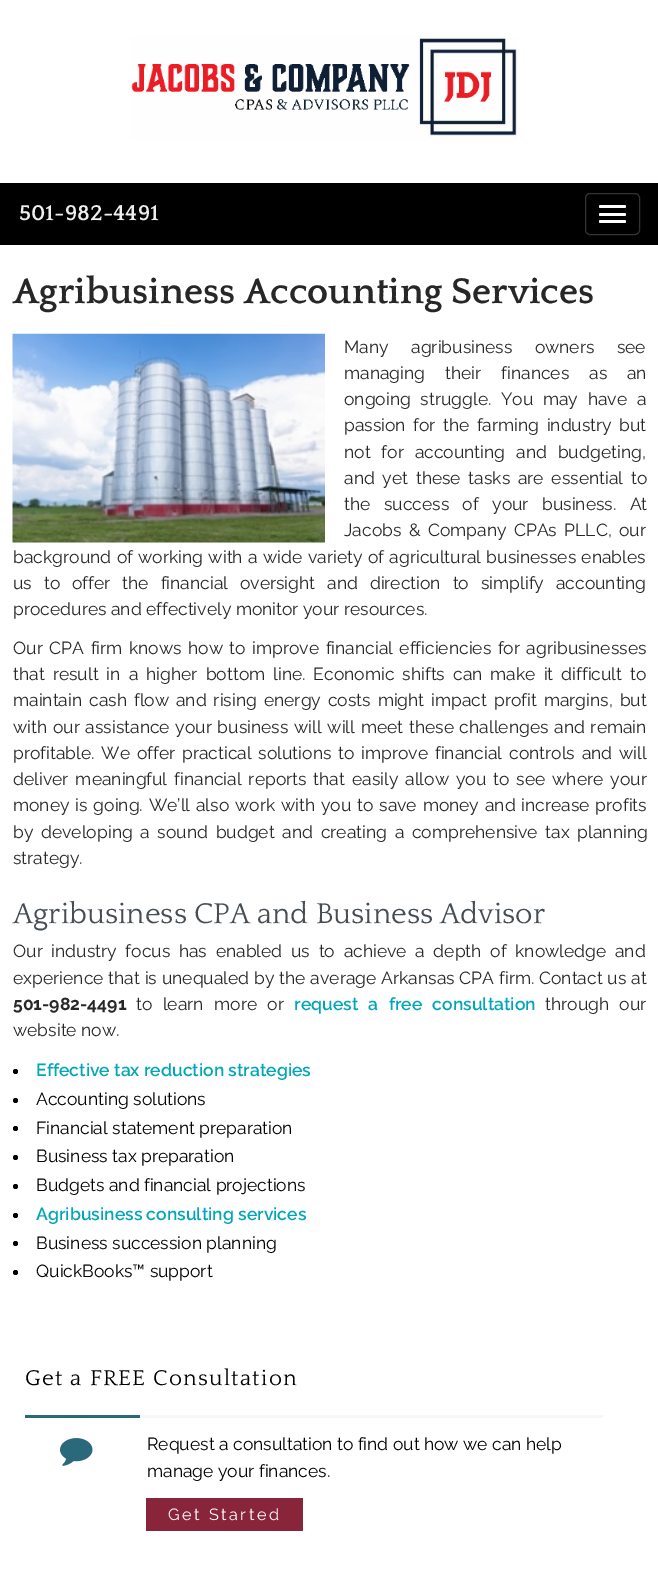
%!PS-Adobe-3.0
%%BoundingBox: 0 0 658 1586
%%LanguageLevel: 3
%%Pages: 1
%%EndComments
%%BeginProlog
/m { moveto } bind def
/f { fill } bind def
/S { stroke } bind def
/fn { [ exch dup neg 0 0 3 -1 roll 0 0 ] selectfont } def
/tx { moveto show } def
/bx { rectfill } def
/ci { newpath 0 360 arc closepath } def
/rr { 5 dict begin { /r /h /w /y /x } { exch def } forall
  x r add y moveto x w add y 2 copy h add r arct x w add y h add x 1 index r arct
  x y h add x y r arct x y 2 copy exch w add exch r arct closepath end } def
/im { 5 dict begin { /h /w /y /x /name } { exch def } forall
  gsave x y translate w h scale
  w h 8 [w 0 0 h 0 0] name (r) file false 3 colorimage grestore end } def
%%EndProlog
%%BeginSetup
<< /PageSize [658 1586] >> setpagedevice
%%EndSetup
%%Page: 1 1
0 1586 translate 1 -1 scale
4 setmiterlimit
1 setgray
0 0 658 1586 bx
(image0.raw) 131 36 386 104 im
0 setgray
0 183 658 62 bx
/Quattrocento-Bold 22.5 fn
0.933 setgray
(501-982-4491) 19 220 tx
0.2 setgray
585.5 193.5 54 41 4.5 rr S
1 setgray
599 205 27 3 1.5 rr f
599 213 27 3 1.5 rr f
599 220 27 3 1.5 rr f
/Quattrocento-Bold 37.5 fn
0.153 setgray
(Agribusiness Accounting Services) 13 303 tx
(image1.raw) 12 333 313 210 im
/Raleway-Regular 17.5 fn
344 353 m 18 0 32 (Many agribusiness owners see) widthshow
344 379 m 15.5 0 32 (managing their finances as an) widthshow
344 405 m 5.25 0 32 (ongoing struggle. You may have a) widthshow
344 431 m 3 0 32 (passion for the farming industry but) widthshow
344 458 m 6.5 0 32 (not for accounting and budgeting,) widthshow
344 484 m 3.25 0 32 (and yet these tasks are essential to) widthshow
344 510 m 9 0 32 (the success of your business. At) widthshow
344 536 m 3 0 32 (Jacobs & Company CPAs PLLC, our) widthshow
13 563 m 1 0 32 (background of working with a wide variety of agricultural businesses enables) widthshow
13 589 m 7.5 0 32 (us to offer the financial oversight and direction to simplify accounting) widthshow
(procedures and effectively monitor your resources.) 13 615 tx
13 654 m 2.1 0 32 (Our CPA firm knows how to improve financial efficiencies for agribusinesses) widthshow
13 680 m 3.6 0 32 (that result in a higher bottom line. Economic shifts can make it difficult to) widthshow
13 706 m 2.5 0 32 (maintain cash flow and rising energy costs might impact profit margins, but) widthshow
13 733 m 1.25 0 32 (with our assistance your business will will meet these challenges and remain) widthshow
13 759 m 2.4 0 32 (profitable. We offer practical solutions to improve financial controls and will) widthshow
13 785 m 2.5 0 32 (deliver meaningful financial reports that easily allow you to see where your) widthshow
13 811 m 1.4 0 32 (money is going. We’ll also work with you to save money and increase profits) widthshow
13 838 m 3.25 0 32 (by developing a sound budget and creating a comprehensive tax planning) widthshow
(strategy.) 13 864 tx
/Quattrocento-Regular 30 fn
0.275 0.302 0.329 setrgbcolor
(Agribusiness CPA and Business Advisor) 13 923 tx
/Raleway-Regular 17.5 fn
0.153 setgray
13 957 m 4.25 0 32 (Our industry focus has enabled us to achieve a depth of knowledge and) widthshow
13 984 m 0.4 0 32 (experience that is unequaled by the average Arkansas CPA firm. Contact us at) widthshow
/Raleway-Bold 17.5 fn
(501-982-4491) 13 1010 tx
/Raleway-Regular 17.5 fn
136 1010 m 6 0 32 (to learn more or) widthshow
/Raleway-SemiBold 17.5 fn
0.004 0.651 0.725 setrgbcolor
294 1010 m 6 0 32 (request a free consultation) widthshow
/Raleway-Regular 17.5 fn
0.153 setgray
545 1010 m 6 0 32 (through our) widthshow
(website now.) 13 1036 tx
0 setgray
15.5 1071.5 2.5 ci f
/Raleway-SemiBold 17.5 fn
0.004 0.651 0.725 setrgbcolor
(Effective tax reduction strategies) 36 1076 tx
0 setgray
15.5 1100.5 2.5 ci f
/Raleway-Regular 17.5 fn
(Accounting solutions) 36 1105 tx
15.5 1128.5 2.5 ci f
(Financial statement preparation) 36 1134 tx
15.5 1157.5 2.5 ci f
(Business tax preparation) 36 1162 tx
15.5 1186.5 2.5 ci f
(Budgets and financial projections) 36 1191 tx
15.5 1215.5 2.5 ci f
/Raleway-SemiBold 17.5 fn
0.004 0.651 0.725 setrgbcolor
(Agribusiness consulting services) 36 1220 tx
0 setgray
15.5 1243.5 2.5 ci f
/Raleway-Regular 17.5 fn
(Business succession planning) 36 1249 tx
15.5 1272.5 2.5 ci f
(QuickBooks™ support) 36 1277 tx
/Quattrocento-Regular 22.5 fn
25 1385 m 1.25 0 (Get a FREE Consultation) ashow
0.969 setgray
140 1415 463 3 bx
0.165 0.408 0.482 setrgbcolor
25 1415 115 3 bx
(image2.raw) 60 1438 33 28 im
/Raleway-Regular 17.5 fn
0 setgray
(Request a consultation to find out how we can help) 147 1450 tx
(manage your finances.) 147 1477 tx
0.537 0.145 0.227 setrgbcolor
146 1498 157 33 bx
/Raleway-Regular 16.25 fn
1 setgray
168 1520 m 2.5 0 (Get Started) ashow
showpage
%%EOF
